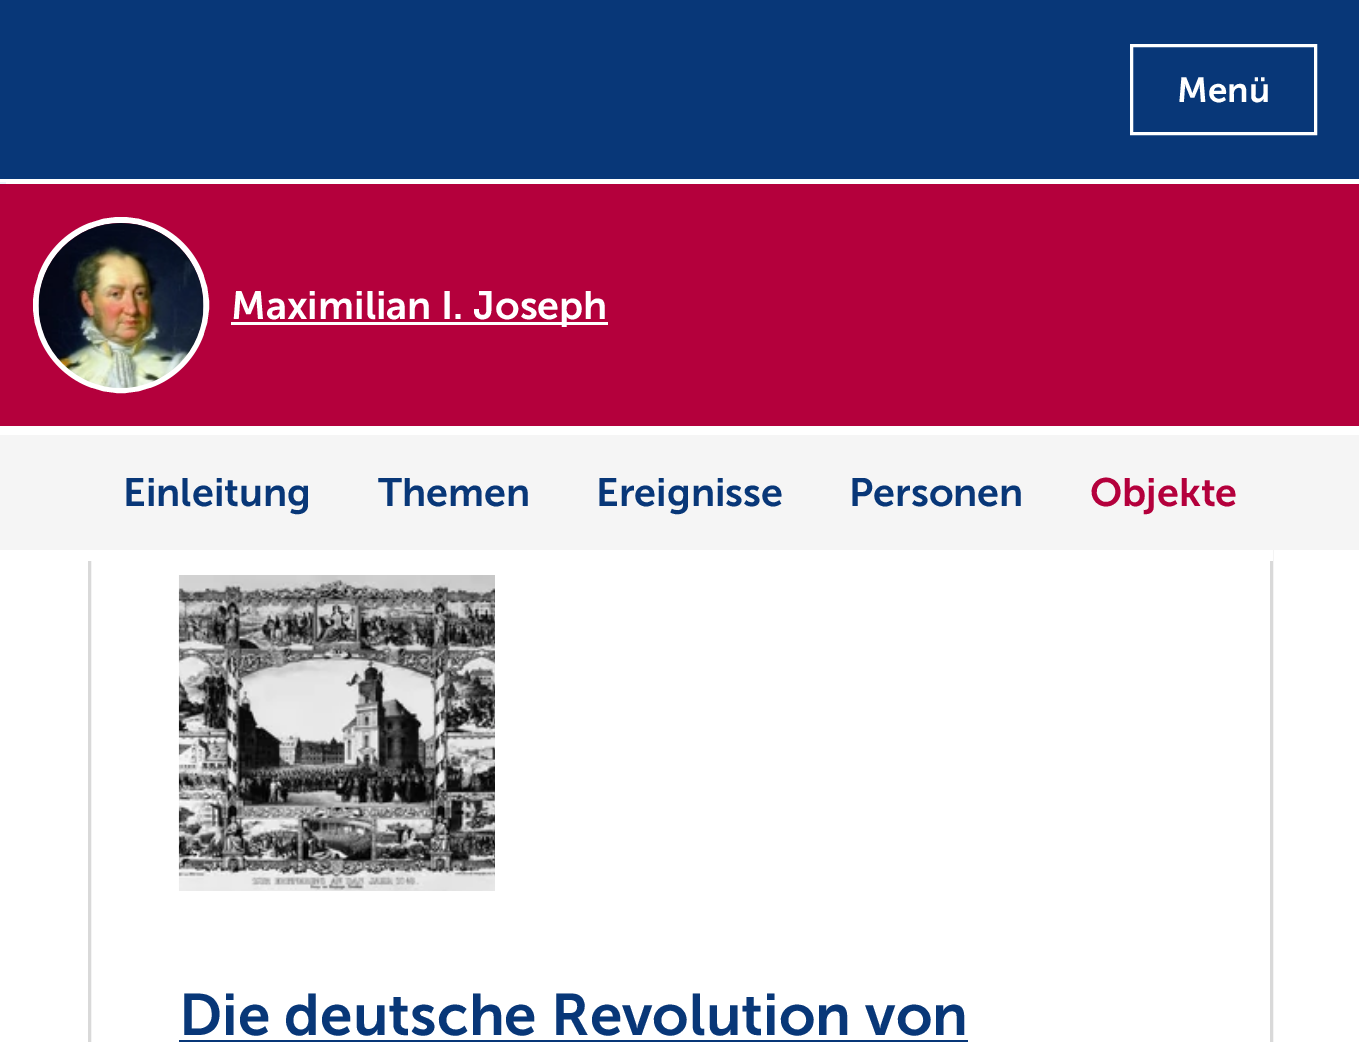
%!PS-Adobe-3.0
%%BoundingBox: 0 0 1359 1042
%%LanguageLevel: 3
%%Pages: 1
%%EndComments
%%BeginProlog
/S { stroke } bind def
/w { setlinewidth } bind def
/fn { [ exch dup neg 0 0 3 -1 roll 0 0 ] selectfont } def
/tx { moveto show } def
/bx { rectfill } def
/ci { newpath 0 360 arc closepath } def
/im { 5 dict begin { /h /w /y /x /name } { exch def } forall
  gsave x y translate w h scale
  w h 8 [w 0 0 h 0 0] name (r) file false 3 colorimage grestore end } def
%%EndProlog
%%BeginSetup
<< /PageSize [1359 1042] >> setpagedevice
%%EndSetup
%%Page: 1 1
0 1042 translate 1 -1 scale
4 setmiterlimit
1 setgray
0 0 1359 1042 bx
0.031 0.216 0.471 setrgbcolor
0 0 1359 179 bx
1 setgray
3 w
1131.5 45.5 184 88 rectstroke
/MuseoSans-SemiBold 35 fn
(Menü) 1177 102 tx
0.929 0.953 0.98 setrgbcolor
0 182 6 2 bx
0.706 0 0.235 setrgbcolor
0 184 1359 242 bx
1 setgray
6 w
121 305 85 ci S
(image0.raw) 38 223 166 165 im
231 322 377 3 bx
/MuseoSans-SemiBold 39.5 fn
(Maximilian I. Joseph) 231 319 tx
0.851 setgray
3 w
89.5 485.5 1182 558 rectstroke
0.961 setgray
0 435 1359 115 bx
1 setgray
88 550 1185 11 bx
0.031 0.216 0.471 setrgbcolor
(Einleitung) 123 506 tx
(Themen) 378 506 tx
(Ereignisse) 596 506 tx
(Personen) 849 506 tx
0.706 0 0.235 setrgbcolor
(Objekte) 1090 506 tx
(image1.raw) 178 575 317 316 im
/MuseoSans-SemiBold 58.5 fn
0.031 0.216 0.471 setrgbcolor
(Die deutsche Revolution von) 179 1035 tx
179 1040 789 2 bx
showpage
%%EOF
